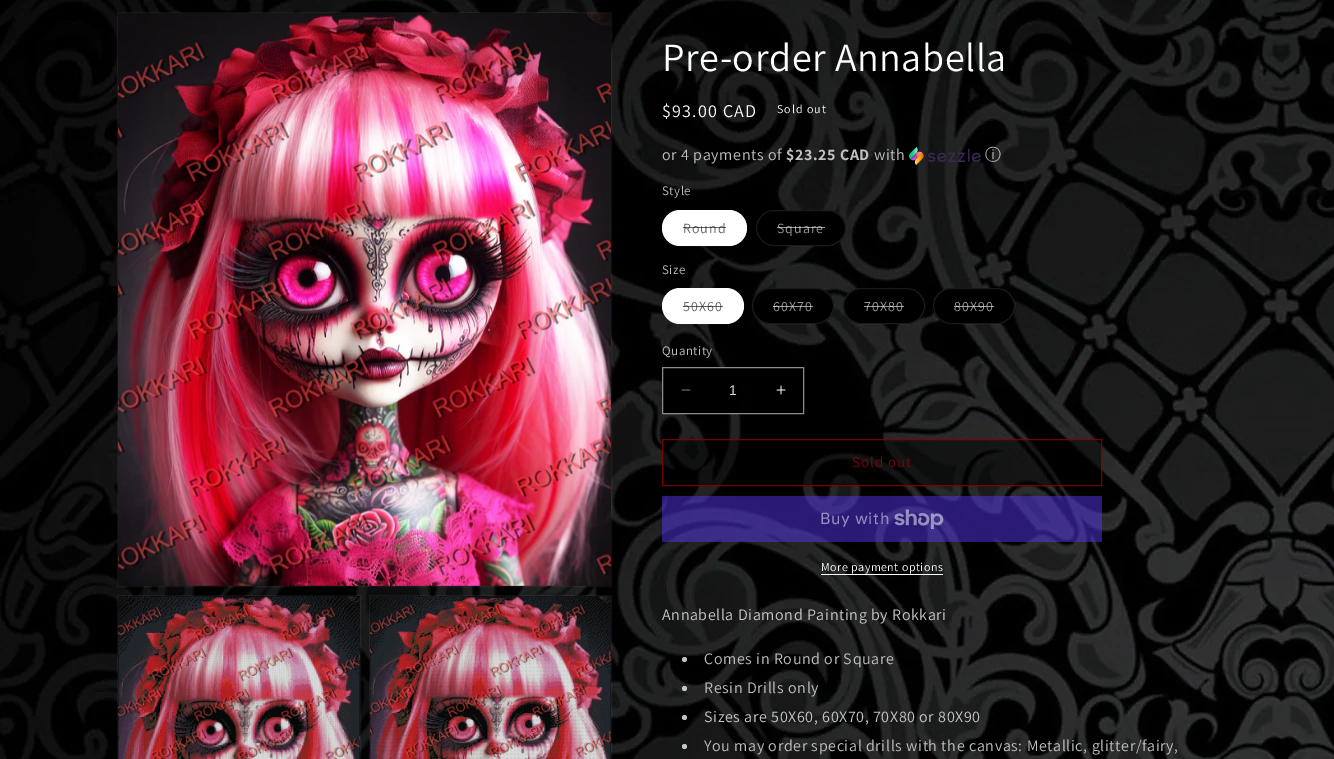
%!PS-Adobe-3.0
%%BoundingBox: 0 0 1334 759
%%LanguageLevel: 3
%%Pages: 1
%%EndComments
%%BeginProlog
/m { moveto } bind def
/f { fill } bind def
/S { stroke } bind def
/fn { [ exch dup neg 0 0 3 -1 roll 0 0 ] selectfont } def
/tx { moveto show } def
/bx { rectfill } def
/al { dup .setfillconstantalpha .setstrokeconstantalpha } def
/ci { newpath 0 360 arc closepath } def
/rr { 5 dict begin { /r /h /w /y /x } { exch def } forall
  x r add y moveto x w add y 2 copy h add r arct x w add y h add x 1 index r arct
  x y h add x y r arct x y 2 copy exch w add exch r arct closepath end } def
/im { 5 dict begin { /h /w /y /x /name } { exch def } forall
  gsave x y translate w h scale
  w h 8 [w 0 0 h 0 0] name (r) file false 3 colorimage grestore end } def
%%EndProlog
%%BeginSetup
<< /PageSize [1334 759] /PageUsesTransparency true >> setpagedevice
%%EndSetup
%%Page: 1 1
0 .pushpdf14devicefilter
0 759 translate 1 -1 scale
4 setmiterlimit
1 setgray
0 0 1334 759 bx
(image0.raw) 0 0 1334 759 im
(image1.raw) 128 27 484 559 im
0.05 al
117.5 12.5 494 574 rectstroke
1 al
(image2.raw) 118 13 493 573 im
(image3.raw) 150 595 211 164 im
0.05 al
117.5 595.5 243 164 rectstroke
1 al
(image4.raw) 118 596 242 163 im
(image5.raw) 369 595 239 154 im
0.05 al
369.5 595.5 242 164 rectstroke
1 al
(image6.raw) 370 596 241 163 im
/Assistant-Regular 40 fn
662 71 m 0.6 0 (Pre-order Annabella) ashow
/Assistant-Regular 18 fn
662 117 m 1.25 0 ($93.00 CAD) ashow
/Assistant-Regular 12 fn
777 113 m 1 0 (Sold out) ashow
/Assistant-Regular 16 fn
0.753 setgray
662 160 m 0.6 0 (or 4 payments of) ashow
/Assistant-Bold 16 fn
786 160 m 0.6 0 ($23.25 CAD) ashow
/Assistant-Regular 16 fn
874 160 m 0.6 0 (with) ashow
(image7.raw) 909 147 72 18 im
/WenQuanYiZenHei-Medium 16 fn
985 160 m 0.6 0 (ⓘ) ashow
/Assistant-Regular 13 fn
662 195 m 0.5 0 (Style) ashow
1 setgray
662 210 85 36 18 rr f
0.1 al
662.5 210.5 84 35 17.5 rr S
/Assistant-Regular 14 fn
1 al
0.4 setgray
683 233 m 1 0 (Round) ashow
0.6 al
0 setgray
683 227 43 1 bx
1 al
756 210 90 36 18 rr f
0.1 al
1 setgray
756.5 210.5 89 35 17.5 rr S
1 al
0.6 setgray
777 233 m 1 0 (Square) ashow
0.6 al
1 setgray
777 227 48 1 bx
/Assistant-Regular 13 fn
1 al
0.753 setgray
662 274 m 0.5 0 (Size) ashow
1 setgray
662 288 82 36 18 rr f
0.1 al
662.5 288.5 81 35 17.5 rr S
/Assistant-Regular 14 fn
1 al
0.4 setgray
683 311 m 1 0 (50X60) ashow
0.6 al
0 setgray
683 306 40 1 bx
1 al
752 288 82 36 18 rr f
0.1 al
1 setgray
752.5 288.5 81 35 17.5 rr S
1 al
0.6 setgray
773 311 m 1 0 (60X70) ashow
0.6 al
1 setgray
773 306 40 1 bx
1 al
0 setgray
843 288 82 36 18 rr f
0.1 al
1 setgray
843.5 288.5 81 35 17.5 rr S
1 al
0.6 setgray
864 311 m 1 0 (70X80) ashow
0.6 al
1 setgray
864 306 40 1 bx
1 al
0 setgray
933 288 82 36 18 rr f
0.1 al
1 setgray
933.5 288.5 81 35 17.5 rr S
1 al
0.6 setgray
954 311 m 1 0 (80X90) ashow
0.6 al
1 setgray
954 306 40 1 bx
/Assistant-Regular 13 fn
1 al
0.753 setgray
662 355 m 0.5 0 (Quantity) ashow
0 setgray
663 368 78 45 bx
(image8.raw) 681 389 10 2 im
(image9.raw) 776 385 10 10 im
0.549 setgray
662.5 367.5 141 46 rectstroke
/LiberationSans-Regular 14 fn
0.851 setgray
(1) 729 395 tx
0.5 al
0 setgray
662 439 440 47 bx
662.5 439.5 439 46 rectstroke
0.914 0 0 setrgbcolor
662.5 439.5 439 46 rectstroke
/Assistant-Regular 15 fn
1 al
0.478 0.02 0.02 setrgbcolor
852 467 m 1 0 (Sold out) ashow
0.5 al
0.329 0.2 0.922 setrgbcolor
662 496 440 46 bx
/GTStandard-Regular 16 fn
1 al
0.588 0.557 0.737 setrgbcolor
820 524 m 0.6 0 (Buy with) ashow
(image10.raw) 894 509 50 20 im
/Assistant-Regular 12 fn
1 setgray
821 571 m 0.5 0 (More payment options) ashow
821 574 122 1 bx
/Assistant-Regular 16 fn
0.776 setgray
662 620 m 0.6 0 (Annabella Diamond Painting by Rokkari) ashow
0.753 setgray
684.5 659.5 2.5 ci f
704 664 m 0.6 0 (Comes in Round or Square) ashow
0.75 al
1 setgray
684.5 688.5 2.5 ci f
1 al
0.753 setgray
704 693 m 0.6 0 (Resin Drills only) ashow
684.5 717.5 2.5 ci f
0.776 setgray
704 722 m 0.6 0 (Sizes are 50X60, 60X70, 70X80 or 80X90) ashow
0.773 setgray
684.5 746.5 2.5 ci f
0.753 setgray
704 751 m 0.6 0 (You may order special drills with the canvas: Metallic, glitter/fairy,) ashow
.poppdf14devicefilter showpage
%%EOF
